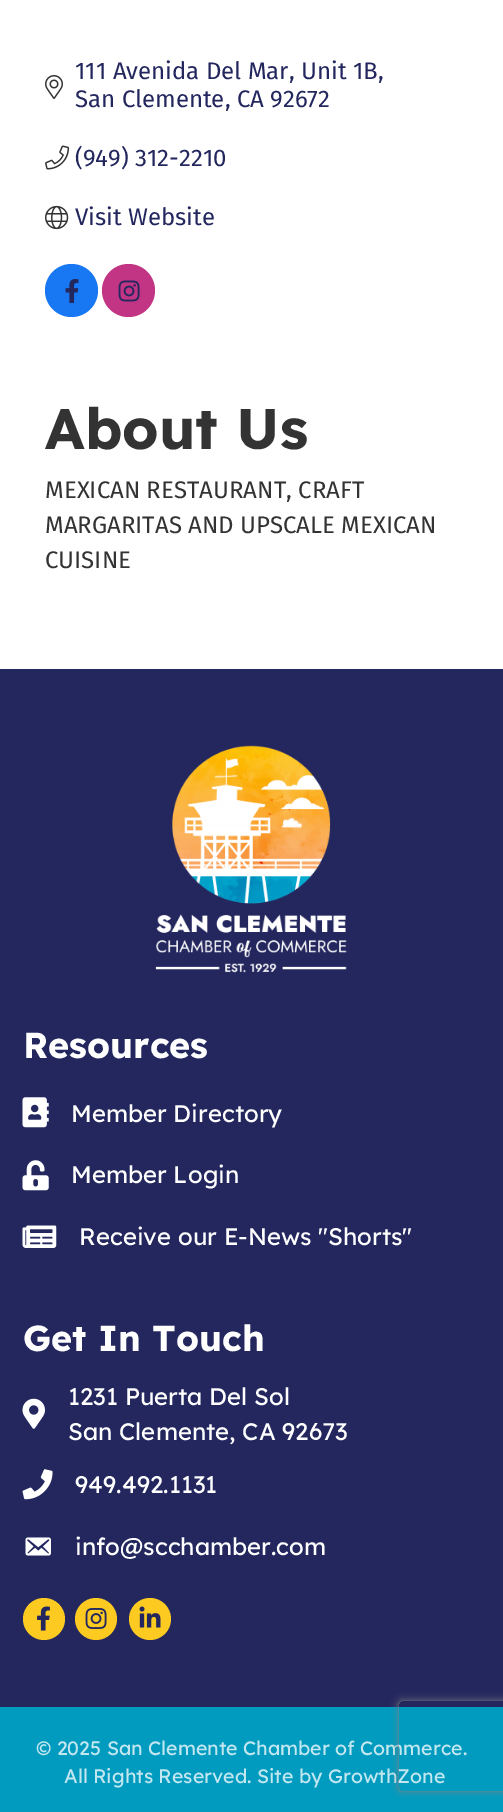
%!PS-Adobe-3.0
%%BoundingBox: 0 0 503 1812
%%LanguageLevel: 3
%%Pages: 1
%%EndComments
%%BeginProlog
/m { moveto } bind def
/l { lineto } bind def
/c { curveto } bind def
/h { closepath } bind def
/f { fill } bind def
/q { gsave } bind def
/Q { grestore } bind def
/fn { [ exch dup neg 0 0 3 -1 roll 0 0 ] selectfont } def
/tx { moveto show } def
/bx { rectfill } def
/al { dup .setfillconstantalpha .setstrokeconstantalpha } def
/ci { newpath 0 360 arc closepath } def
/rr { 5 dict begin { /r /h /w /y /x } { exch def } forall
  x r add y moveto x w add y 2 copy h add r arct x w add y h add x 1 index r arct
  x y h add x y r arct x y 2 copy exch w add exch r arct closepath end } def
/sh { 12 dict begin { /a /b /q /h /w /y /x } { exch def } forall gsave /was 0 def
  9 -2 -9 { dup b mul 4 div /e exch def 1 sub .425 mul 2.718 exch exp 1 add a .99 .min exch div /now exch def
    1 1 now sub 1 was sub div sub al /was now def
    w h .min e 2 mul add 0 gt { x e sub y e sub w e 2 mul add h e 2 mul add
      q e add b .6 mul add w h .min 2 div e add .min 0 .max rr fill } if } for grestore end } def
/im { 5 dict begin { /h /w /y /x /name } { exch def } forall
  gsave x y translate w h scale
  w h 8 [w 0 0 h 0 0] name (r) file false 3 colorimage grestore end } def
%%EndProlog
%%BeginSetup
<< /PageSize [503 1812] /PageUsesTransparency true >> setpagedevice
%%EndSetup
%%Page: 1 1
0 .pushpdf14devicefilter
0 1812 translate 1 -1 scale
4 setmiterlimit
1 setgray
0 0 503 1812 bx
/FiraSans-Regular 24 fn
0.137 0.153 0.369 setrgbcolor
(111 Avenida Del Mar, Unit 1B,) 75 79 tx
(image0.raw) 45 75 18 24 im
(San Clemente, CA 92672) 75 107 tx
(image1.raw) 45 145 25 25 im
(\(949\) 312-2210) 75 166 tx
(image2.raw) 45 205 24 25 im
(Visit Website) 75 225 tx
0.094 0.467 0.949 setrgbcolor
71.5 290.5 26.5 ci f
(image3.raw) 65 279 14 24 im
0.757 0.208 0.518 setrgbcolor
128.5 290.5 26.5 ci f
(image4.raw) 118 280 22 22 im
/LexendDeca-Bold 57 fn
0.2 setgray
(About Us) 45 449 tx
/FiraSans-Regular 24 fn
(MEXICAN RESTAURANT, CRAFT) 45 498 tx
(MARGARITAS AND UPSCALE MEXICAN) 45 533 tx
(CUISINE) 45 568 tx
0.137 0.153 0.369 setrgbcolor
0 669 503 1038 bx
(image5.raw) 155 745 192 228 im
/LexendDeca-Bold 36 fn
1 setgray
(Resources) 23 1058 tx
(image6.raw) 22 1097 27 31 im
/LexendDeca-Regular 24 fn
(Member Directory) 71 1122 tx
(image7.raw) 22 1160 27 31 im
(Member Login) 71 1183 tx
(image8.raw) 22 1225 35 23 im
(Receive our E-News "Shorts") 79 1245 tx
/LexendDeca-Bold 36 fn
(Get In Touch) 23 1351 tx
(image9.raw) 22 1398 23 31 im
/LexendDeca-Regular 24 fn
(1231 Puerta Del Sol) 68 1405 tx
(San Clemente, CA 92673) 68 1440 tx
(image10.raw) 22 1469 31 31 im
(949.492.1131) 75 1493 tx
(image11.raw) 25 1537 26 19 im
(info@scchamber.com) 75 1555 tx
0.992 0.792 0.129 setrgbcolor
44 1619 21 ci f
(image12.raw) 37 1606 13 25 im
96 1619 21 ci f
(image13.raw) 85 1608 22 21 im
150 1619 21 ci f
(image14.raw) 139 1606 22 22 im
0 0.608 0.749 setrgbcolor
0 1707 503 105 bx
/LexendDeca-Regular 19.5 fn
0.761 0.906 0.941 setrgbcolor
(© 2025 San Clemente Chamber of Commerce.) 36 1755 tx
(All Rights Reserved. Site by GrowthZone) 64 1783 tx
q
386 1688 m 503 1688 l 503 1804 l 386 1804 l h 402 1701 m 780 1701 l 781.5 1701 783 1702.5 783 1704 c 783 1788 l 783 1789.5 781.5 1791 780 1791 c 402 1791 l 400.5 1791 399 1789.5 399 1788 c 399 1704 l 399 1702.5 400.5 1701 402 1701 c h eoclip newpath
0.502 setgray
399 1701 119 90 3 4 1 sh
Q
.poppdf14devicefilter showpage
%%EOF
